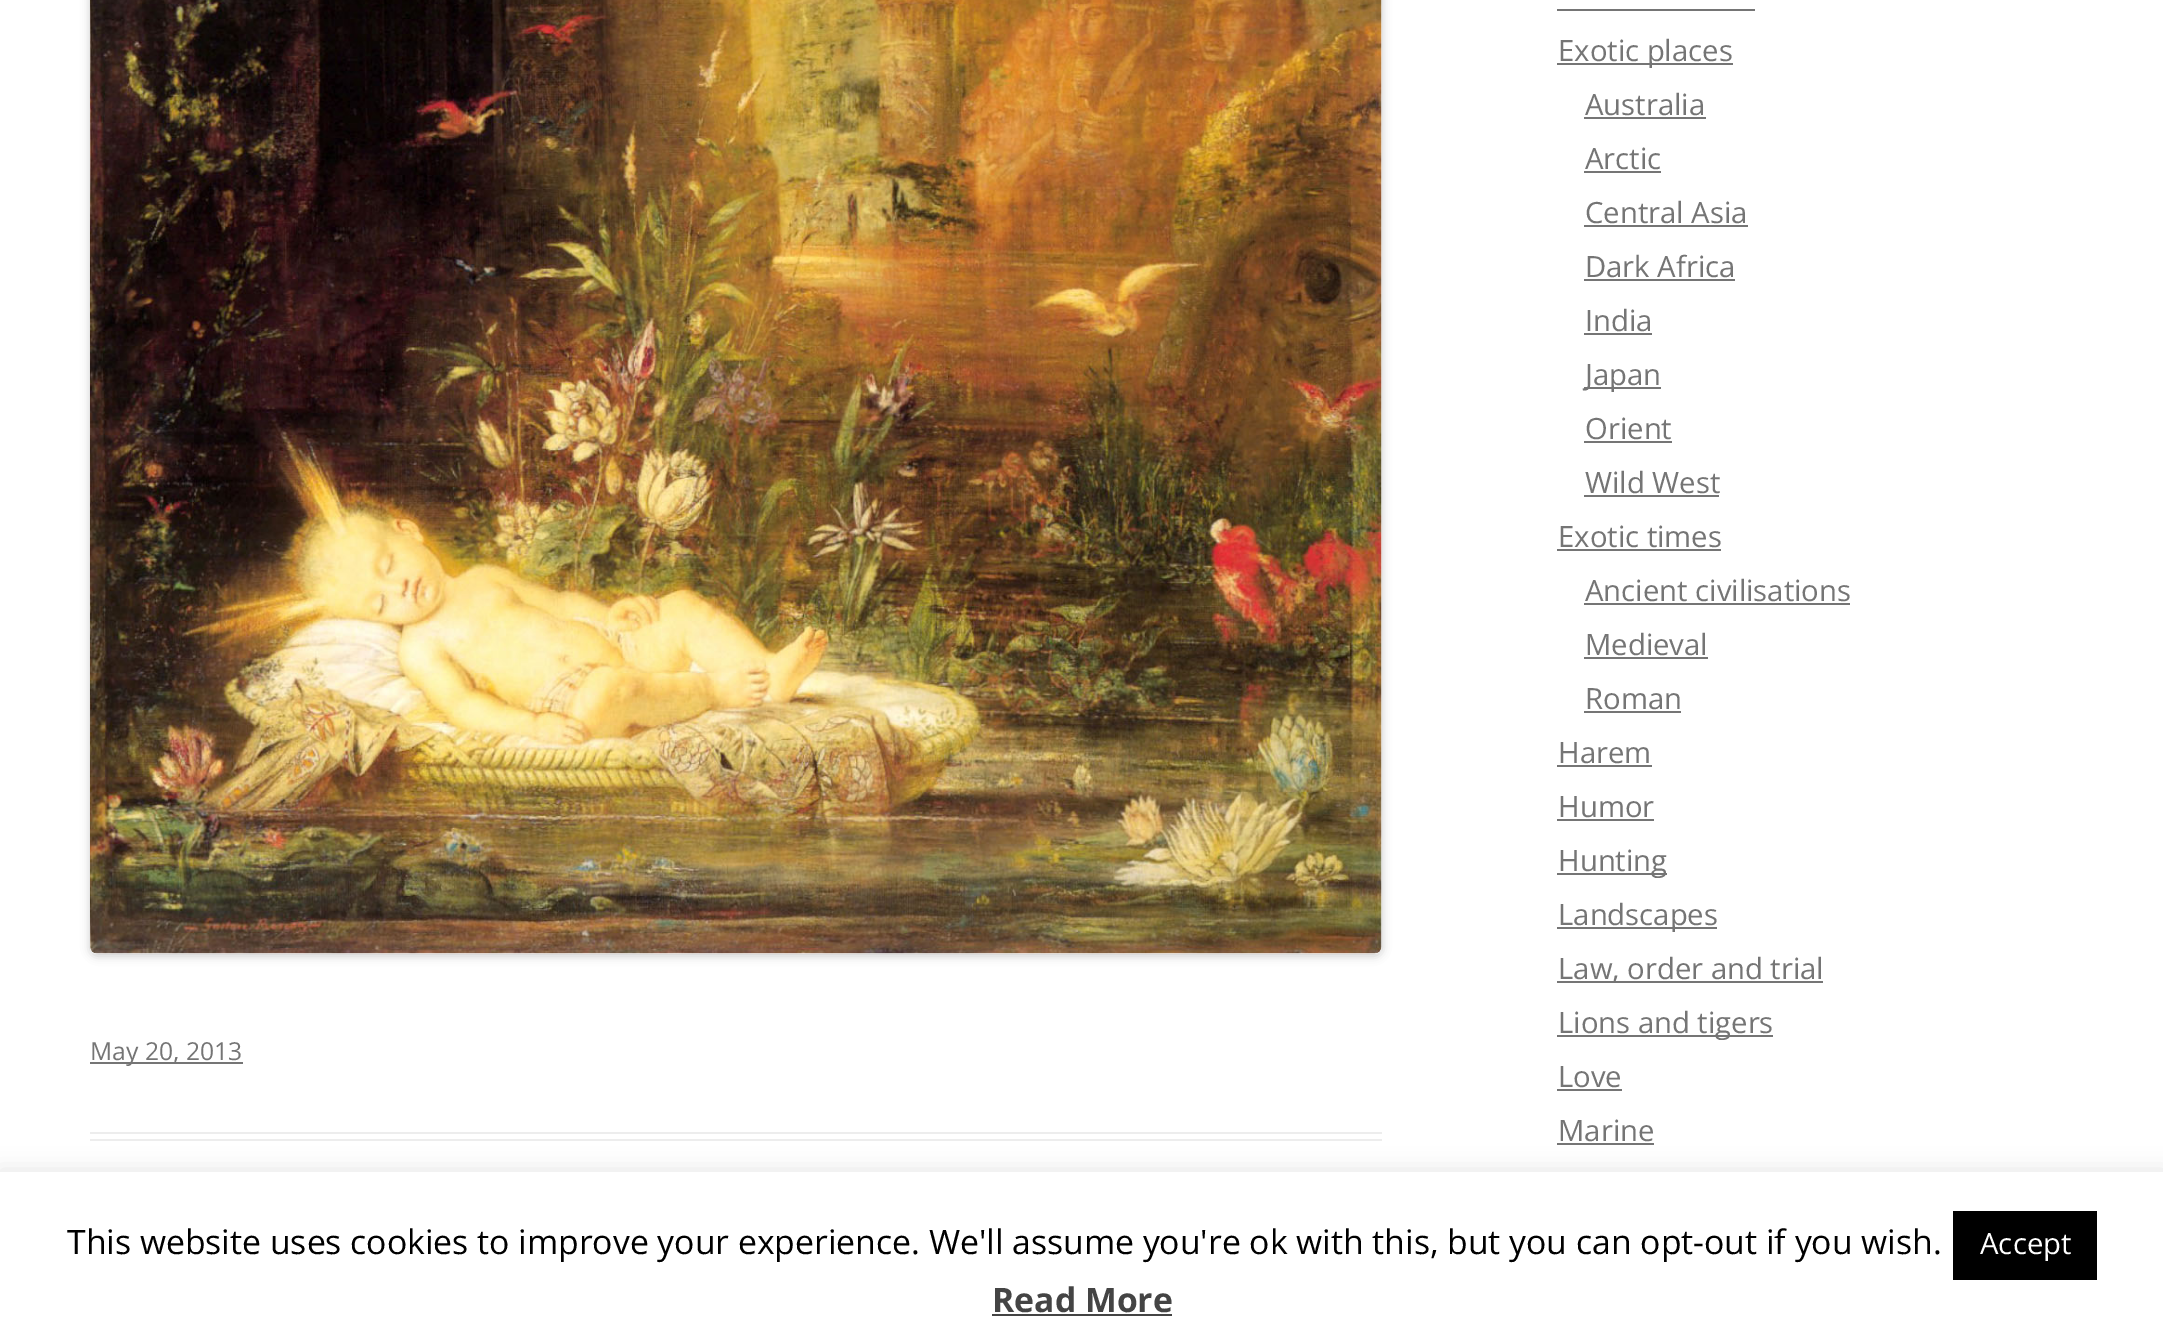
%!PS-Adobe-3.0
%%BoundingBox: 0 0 2163 1343
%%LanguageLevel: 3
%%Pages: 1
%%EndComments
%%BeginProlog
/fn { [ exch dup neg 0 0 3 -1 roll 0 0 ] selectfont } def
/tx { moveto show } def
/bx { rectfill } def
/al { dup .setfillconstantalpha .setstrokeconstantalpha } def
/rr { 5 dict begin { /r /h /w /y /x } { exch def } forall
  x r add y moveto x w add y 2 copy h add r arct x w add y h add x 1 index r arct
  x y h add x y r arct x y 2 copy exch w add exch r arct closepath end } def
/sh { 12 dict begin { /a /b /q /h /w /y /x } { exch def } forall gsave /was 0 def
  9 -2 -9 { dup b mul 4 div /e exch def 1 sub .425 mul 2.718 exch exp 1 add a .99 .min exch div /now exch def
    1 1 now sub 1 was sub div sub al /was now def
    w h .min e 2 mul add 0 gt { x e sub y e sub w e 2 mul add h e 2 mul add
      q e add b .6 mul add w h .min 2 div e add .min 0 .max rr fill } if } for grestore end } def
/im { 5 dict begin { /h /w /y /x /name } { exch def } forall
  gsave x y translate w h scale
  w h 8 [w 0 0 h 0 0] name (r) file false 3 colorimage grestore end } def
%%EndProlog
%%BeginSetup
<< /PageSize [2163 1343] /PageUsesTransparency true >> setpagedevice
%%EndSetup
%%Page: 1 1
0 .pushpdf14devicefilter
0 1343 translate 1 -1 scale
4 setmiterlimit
1 setgray
0 0 2163 1343 bx
0.929 setgray
90 1132 1292 2 bx
90 1139 1292 2 bx
0 setgray
90 -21 1292 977 7 4.5 0.2 sh
(image0.raw) 90 0 1292 954 im
0.459 setgray
90 1062 153 2 bx
/OpenSans-Regular 24.75 fn
(May 20, 2013) 90 1060 tx
1557 9 198 2 bx
1557 63 176 2 bx
/OpenSans-Regular 29.25 fn
(Exotic places) 1558 61 tx
(Australia) 1585 115 tx
1584 117 122 2 bx
(Arctic) 1585 169 tx
1584 171 77 2 bx
(Central Asia) 1585 223 tx
1584 225 164 2 bx
(Dark Africa) 1585 277 tx
1584 279 151 2 bx
(India) 1585 331 tx
1584 333 68 2 bx
1584 387 77 2 bx
(Japan) 1585 385 tx
(Orient) 1585 439 tx
1584 441 88 2 bx
(Wild West) 1585 493 tx
1584 495 135 2 bx
(Exotic times) 1558 547 tx
1557 549 164 2 bx
(Ancient civilisations) 1585 601 tx
1584 603 266 2 bx
(Medieval) 1585 655 tx
1584 657 124 2 bx
(Roman) 1585 709 tx
1584 711 97 2 bx
(Harem) 1558 763 tx
1557 765 95 2 bx
(Humor) 1558 817 tx
1557 819 97 2 bx
1557 873 110 2 bx
(Hunting) 1558 871 tx
1557 927 160 2 bx
(Landscapes) 1558 925 tx
1557 981 266 2 bx
(Law, order and trial) 1558 979 tx
1557 1035 216 2 bx
(Lions and tigers) 1558 1033 tx
(Love) 1558 1087 tx
1557 1089 65 2 bx
(Marine) 1558 1141 tx
1557 1143 97 2 bx
0.675 0.671 0.671 setrgbcolor
0 1170 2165 171 0 11 0.3 sh
1 setgray
0 1172 2163 171 bx
/OpenSans-Regular 33.75 fn
0 setgray
(This website uses cookies to improve your experience. We'll assume you're ok with this, but you can opt-out if you wish.) 67 1254 tx
1953 1211 144 69 bx
/OpenSans-Regular 29.25 fn
1 setgray
(Accept) 1980 1254 tx
/OpenSans-Bold 33.75 fn
0.267 setgray
(Read More) 992 1312 tx
992 1314 180 2 bx
.poppdf14devicefilter showpage
%%EOF
